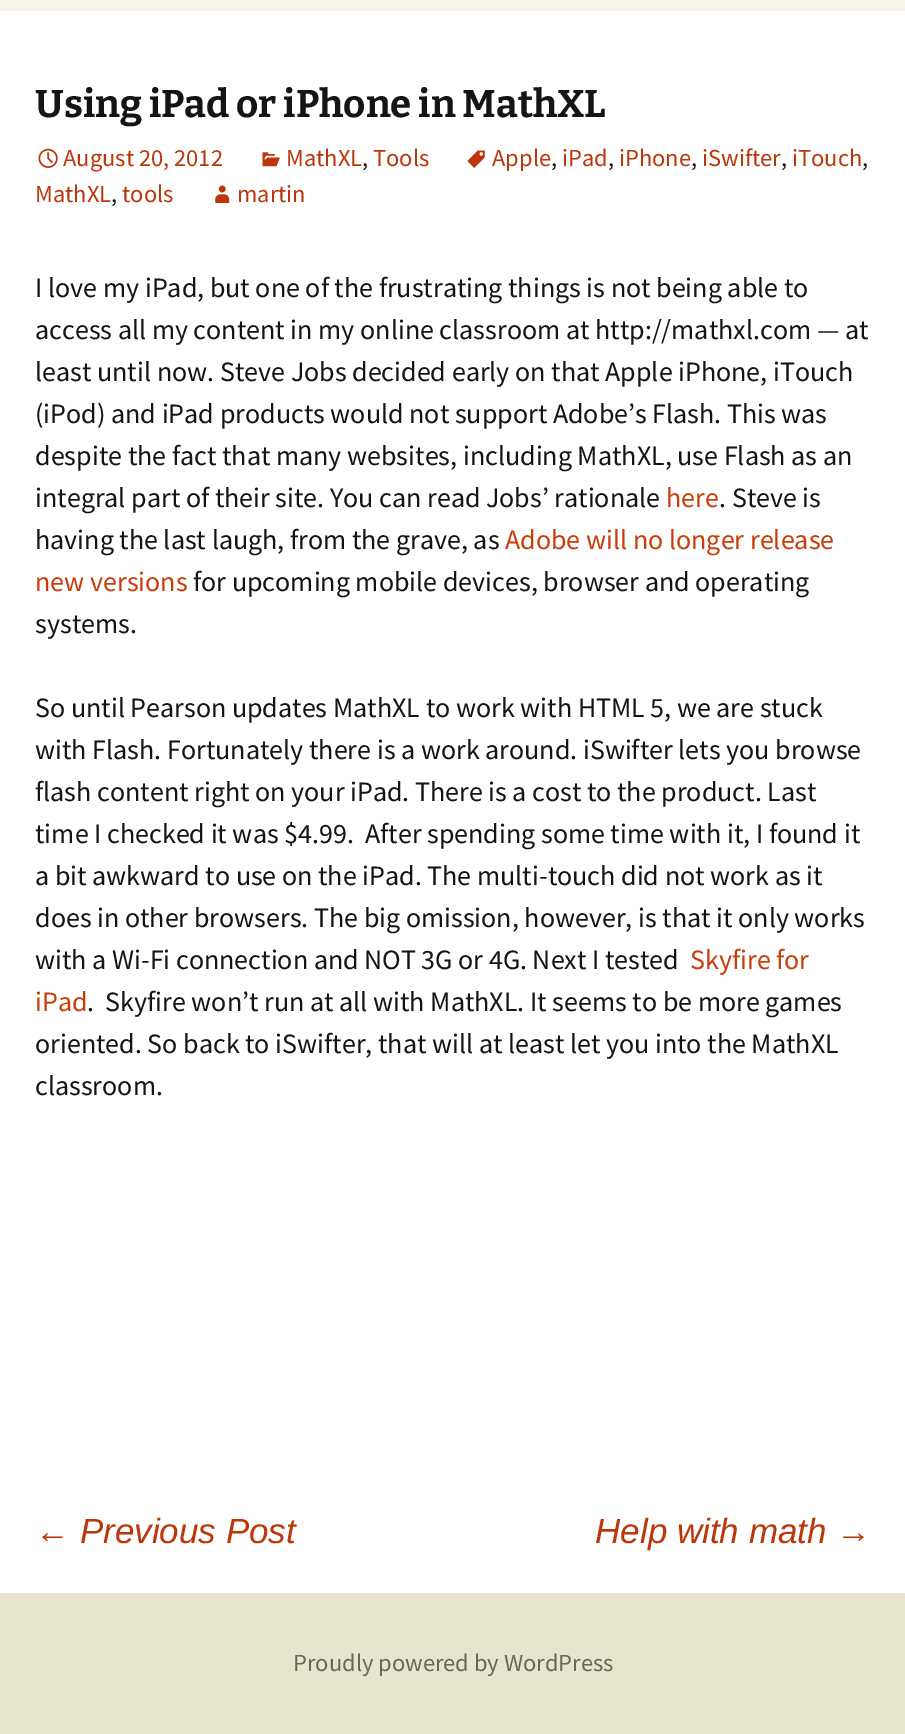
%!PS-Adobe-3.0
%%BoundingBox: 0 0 905 1734
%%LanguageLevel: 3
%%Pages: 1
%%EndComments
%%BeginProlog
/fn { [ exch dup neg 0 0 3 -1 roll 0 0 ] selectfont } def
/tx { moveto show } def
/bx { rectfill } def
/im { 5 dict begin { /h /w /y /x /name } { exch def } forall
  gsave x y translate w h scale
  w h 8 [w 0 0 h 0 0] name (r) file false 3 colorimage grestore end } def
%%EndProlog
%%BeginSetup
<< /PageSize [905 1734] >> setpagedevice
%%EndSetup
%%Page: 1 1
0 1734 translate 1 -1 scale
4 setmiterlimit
1 setgray
0 0 905 1734 bx
0.969 0.961 0.906 setrgbcolor
0 0 905 11 bx
/Bitter-Thin 38.5 fn
0.078 0.078 0.071 setrgbcolor
(Using iPad or iPhone in MathXL) 35 117 tx
(image0.raw) 467 150 18 18 im
/SourceSansPro-Regular 24.5 fn
0.737 0.212 0.039 setrgbcolor
(Apple) 492 166 tx
0.078 0.078 0.071 setrgbcolor
(,) 551 166 tx
0.737 0.212 0.039 setrgbcolor
(iPad) 562 166 tx
0.078 0.078 0.071 setrgbcolor
(,) 608 166 tx
0.737 0.212 0.039 setrgbcolor
(iPhone) 619 166 tx
0.078 0.078 0.071 setrgbcolor
(,) 691 166 tx
0.737 0.212 0.039 setrgbcolor
(iSwifter) 702 166 tx
0.078 0.078 0.071 setrgbcolor
(,) 781 166 tx
0.737 0.212 0.039 setrgbcolor
(iTouch) 792 166 tx
0.078 0.078 0.071 setrgbcolor
(,) 862 166 tx
0.737 0.212 0.039 setrgbcolor
(MathXL) 35 202 tx
0.078 0.078 0.071 setrgbcolor
(,) 111 202 tx
0.737 0.212 0.039 setrgbcolor
(tools) 122 202 tx
(image1.raw) 38 148 20 20 im
(August 20, 2012) 63 166 tx
(image2.raw) 262 152 18 15 im
(MathXL) 286 166 tx
0.078 0.078 0.071 setrgbcolor
(,) 362 166 tx
0.737 0.212 0.039 setrgbcolor
(Tools) 373 166 tx
(image3.raw) 215 185 15 18 im
(martin) 237 202 tx
/SourceSansPro-Regular 28 fn
0.078 0.078 0.071 setrgbcolor
(I love my iPad, but one of the frustrating things is not being able to) 35 297 tx
(access all my content in my online classroom at http://mathxl.com — at) 35 339 tx
(least until now. Steve Jobs decided early on that Apple iPhone, iTouch) 35 381 tx
(\(iPod\) and iPad products would not support Adobe’s Flash. This was) 35 423 tx
(despite the fact that many websites, including MathXL, use Flash as an) 35 465 tx
(integral part of their site. You can read Jobs’ rationale) 35 507 tx
0.792 0.235 0.031 setrgbcolor
(here) 666 507 tx
0.078 0.078 0.071 setrgbcolor
(. Steve is) 719 507 tx
(having the last laugh, from the grave, as) 35 549 tx
0.792 0.235 0.031 setrgbcolor
(Adobe will no longer release) 505 549 tx
(new versions) 35 591 tx
0.078 0.078 0.071 setrgbcolor
(for upcoming mobile devices, browser and operating) 193 591 tx
(systems.) 35 633 tx
(So until Pearson updates MathXL to work with HTML 5, we are stuck) 35 717 tx
(with Flash. Fortunately there is a work around. iSwifter lets you browse) 35 759 tx
(flash content right on your iPad. There is a cost to the product. Last) 35 801 tx
(time I checked it was $4.99.  After spending some time with it, I found it) 35 843 tx
(a bit awkward to use on the iPad. The multi-touch did not work as it) 35 885 tx
(does in other browsers. The big omission, however, is that it only works) 35 927 tx
(with a Wi-Fi connection and NOT 3G or 4G. Next I tested) 35 969 tx
0.792 0.235 0.031 setrgbcolor
(Skyfire for) 690 969 tx
(iPad) 35 1011 tx
0.078 0.078 0.071 setrgbcolor
(.  Skyfire won’t run at all with MathXL. It seems to be more games) 87 1011 tx
(oriented. So back to iSwifter, that will at least let you into the MathXL) 35 1053 tx
(classroom.) 35 1095 tx
/LiberationSans-Italic 35 fn
0.737 0.212 0.039 setrgbcolor
(← Previous Post) 35 1543 tx
(Help with math →) 595 1543 tx
0.91 0.898 0.808 setrgbcolor
0 1593 905 141 bx
/SourceSansPro-Regular 24.5 fn
0.408 0.404 0.345 setrgbcolor
(Proudly powered by WordPress) 293 1671 tx
showpage
%%EOF
